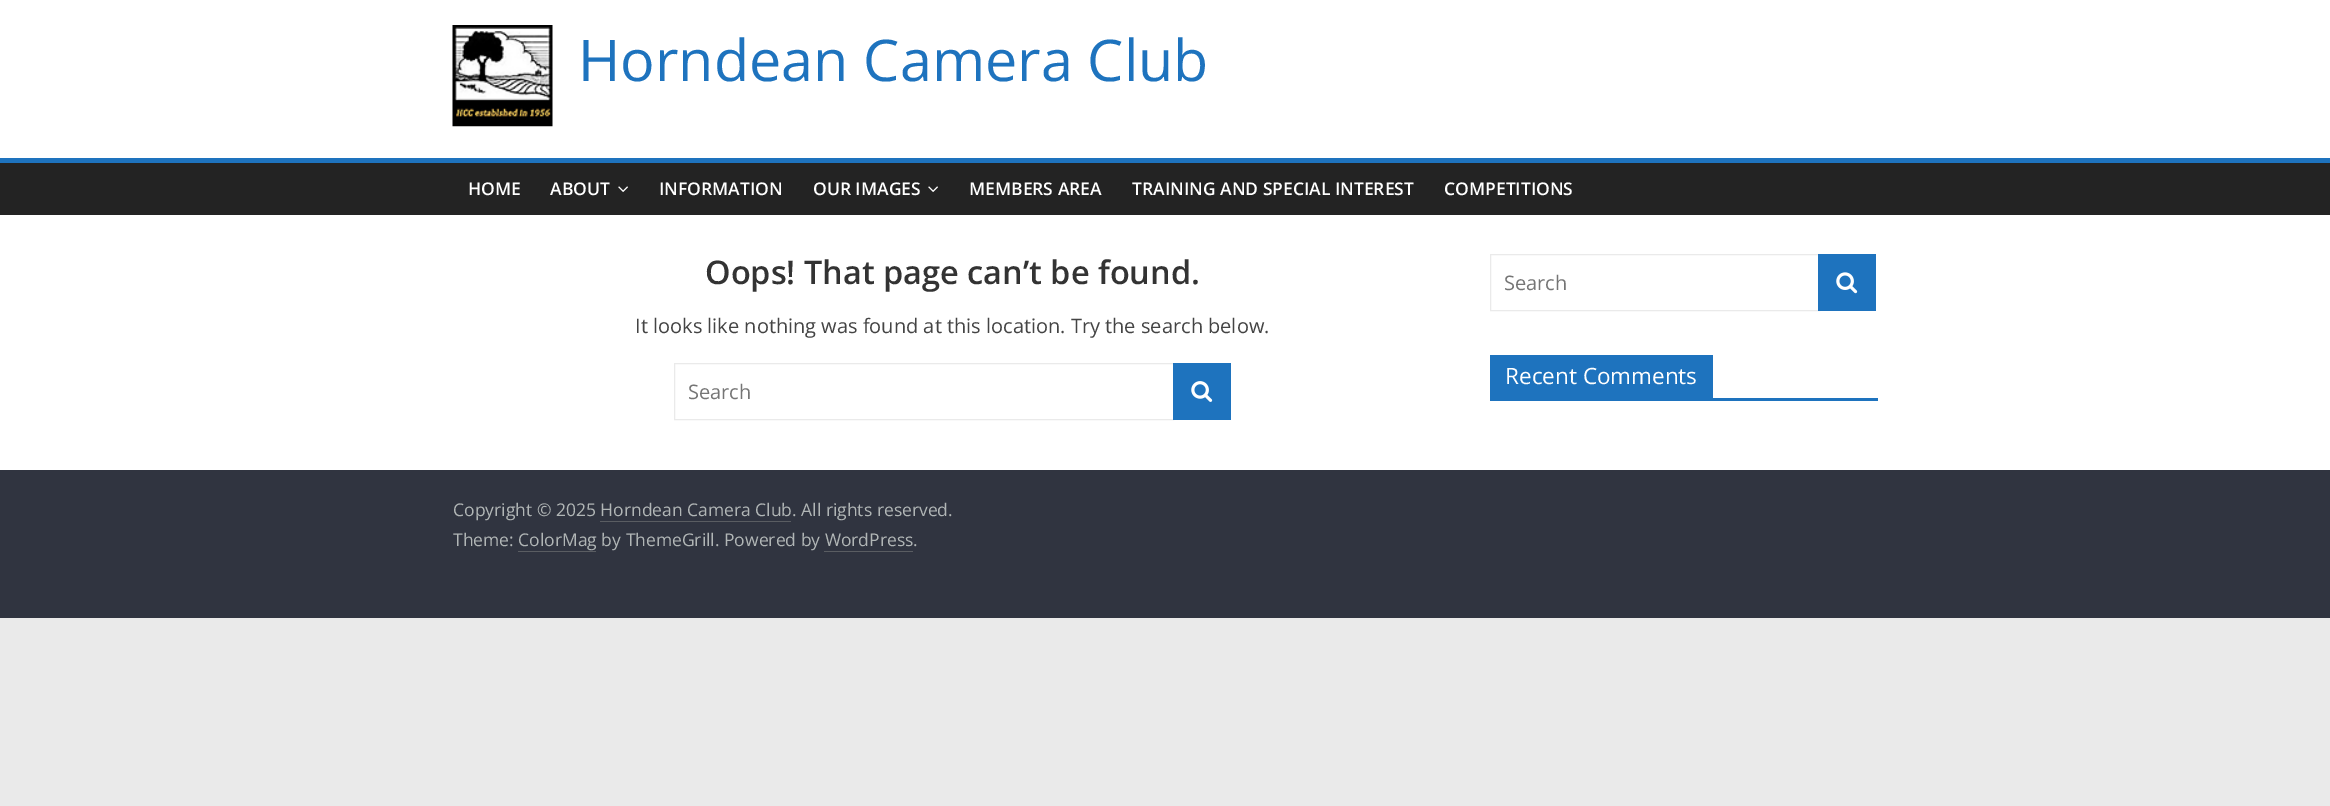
%!PS-Adobe-3.0
%%BoundingBox: 0 0 2330 806
%%LanguageLevel: 3
%%Pages: 1
%%EndComments
%%BeginProlog
/fn { [ exch dup neg 0 0 3 -1 roll 0 0 ] selectfont } def
/tx { moveto show } def
/bx { rectfill } def
/im { 5 dict begin { /h /w /y /x /name } { exch def } forall
  gsave x y translate w h scale
  w h 8 [w 0 0 h 0 0] name (r) file false 3 colorimage grestore end } def
%%EndProlog
%%BeginSetup
<< /PageSize [2330 806] >> setpagedevice
%%EndSetup
%%Page: 1 1
0 806 translate 1 -1 scale
4 setmiterlimit
0.918 setgray
0 0 2330 806 bx
1 setgray
0 0 2330 158 bx
(image0.raw) 452 25 101 102 im
/OpenSans-Regular 57.5 fn
0.118 0.451 0.745 setrgbcolor
(Horndean Camera Club) 578 81 tx
0.137 setgray
0 163 2330 52 bx
0.118 0.451 0.745 setrgbcolor
0 158 2330 5 bx
/OpenSans-SemiBold 17.5 fn
1 setgray
(HOME) 468 195 tx
(ABOUT) 550 195 tx
(image1.raw) 618 186 10 6 im
(INFORMATION) 659 195 tx
(OUR IMAGES) 813 195 tx
(image1.raw) 928 186 10 6 im
(MEMBERS AREA) 969 195 tx
(TRAINING AND SPECIAL INTEREST) 1132 195 tx
(COMPETITIONS) 1444 195 tx
0 215 2330 255 bx
/OpenSans-SemiBold 32.5 fn
0.2 setgray
(Oops! That page can’t be found.) 705 284 tx
/OpenSans-Regular 20 fn
0.267 setgray
(It looks like nothing was found at this location. Try the search below.) 635 333 tx
0.918 setgray
674.5 363.5 499 56 rectstroke
0.459 setgray
(Search) 688 399 tx
0.118 0.451 0.745 setrgbcolor
1173 363 58 57 bx
(image2.raw) 1191 381 22 21 im
0.918 setgray
1490.5 254.5 329 56 rectstroke
0.459 setgray
(Search) 1504 290 tx
0.118 0.451 0.745 setrgbcolor
1818 254 58 57 bx
(image3.raw) 1836 272 22 22 im
1490 398 388 3 bx
1490 355 223 43 bx
/OpenSans-Regular 22.5 fn
1 setgray
(Recent Comments) 1505 384 tx
0.188 0.204 0.251 setrgbcolor
0 470 2330 148 bx
/OpenSans-Regular 17.5 fn
0.694 0.714 0.714 setrgbcolor
(Copyright © 2025 Horndean Camera Club. All rights reserved.) 453 516 tx
0.353 0.365 0.384 setrgbcolor
600 521 191 1 bx
0.694 0.714 0.714 setrgbcolor
(Theme: ColorMag by ThemeGrill. Powered by WordPress.) 453 546 tx
0.353 0.365 0.384 setrgbcolor
518 551 78 1 bx
824 551 89 1 bx
showpage
%%EOF
